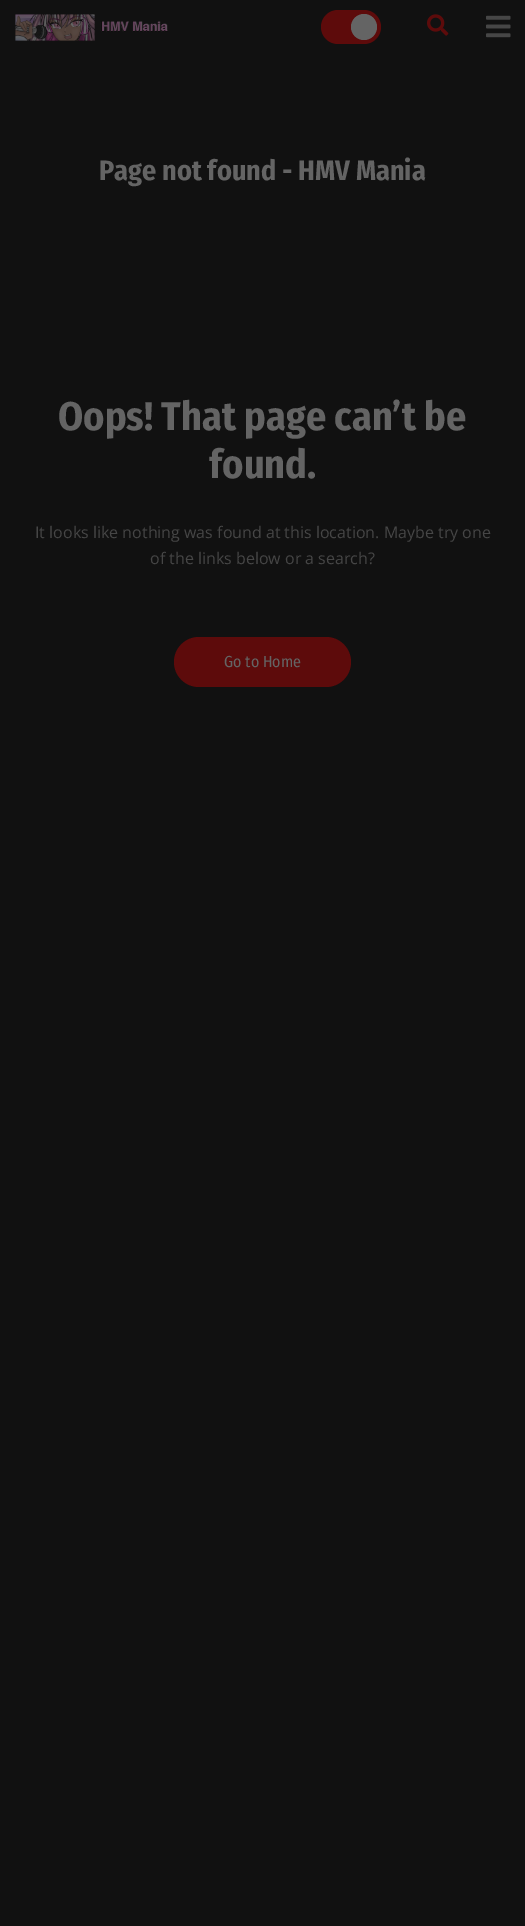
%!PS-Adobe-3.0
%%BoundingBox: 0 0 525 1926
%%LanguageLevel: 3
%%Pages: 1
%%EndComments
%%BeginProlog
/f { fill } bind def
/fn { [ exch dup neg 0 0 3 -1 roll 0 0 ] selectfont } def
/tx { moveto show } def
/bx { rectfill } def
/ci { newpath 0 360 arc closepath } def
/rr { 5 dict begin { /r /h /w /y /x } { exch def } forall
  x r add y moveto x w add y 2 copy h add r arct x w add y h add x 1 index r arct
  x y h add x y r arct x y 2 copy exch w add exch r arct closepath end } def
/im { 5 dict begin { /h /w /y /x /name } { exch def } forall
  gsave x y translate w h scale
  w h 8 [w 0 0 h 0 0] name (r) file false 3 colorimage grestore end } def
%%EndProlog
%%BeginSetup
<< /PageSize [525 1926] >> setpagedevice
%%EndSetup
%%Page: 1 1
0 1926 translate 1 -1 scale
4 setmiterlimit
0.067 setgray
0 0 525 1926 bx
(image0.raw) 15 14 153 27 im
0.365 0.043 0.043 setrgbcolor
321 10 60 34 17 rr f
0.392 setgray
364 27 13 ci f
(image1.raw) 427 14 22 22 im
(image2.raw) 486 15 25 23 im
/FiraSansCondensed-Bold 28 fn
(Page not found - HMV Mania) 99 180 tx
/FiraSansCondensed-Bold 40 fn
(Oops! That page can’t be) 58 430 tx
(found.) 209 478 tx
/OpenSans-Regular 16 fn
0.275 setgray
(It looks like nothing was found at this location. Maybe try one) 35 538 tx
(of the links below or a search?) 150 564 tx
0.365 0.043 0.043 setrgbcolor
174 637 177 50 25 rr f
/FiraSansCondensed-Regular 16 fn
0.392 setgray
(Go to Home) 224 667 tx
showpage
%%EOF
